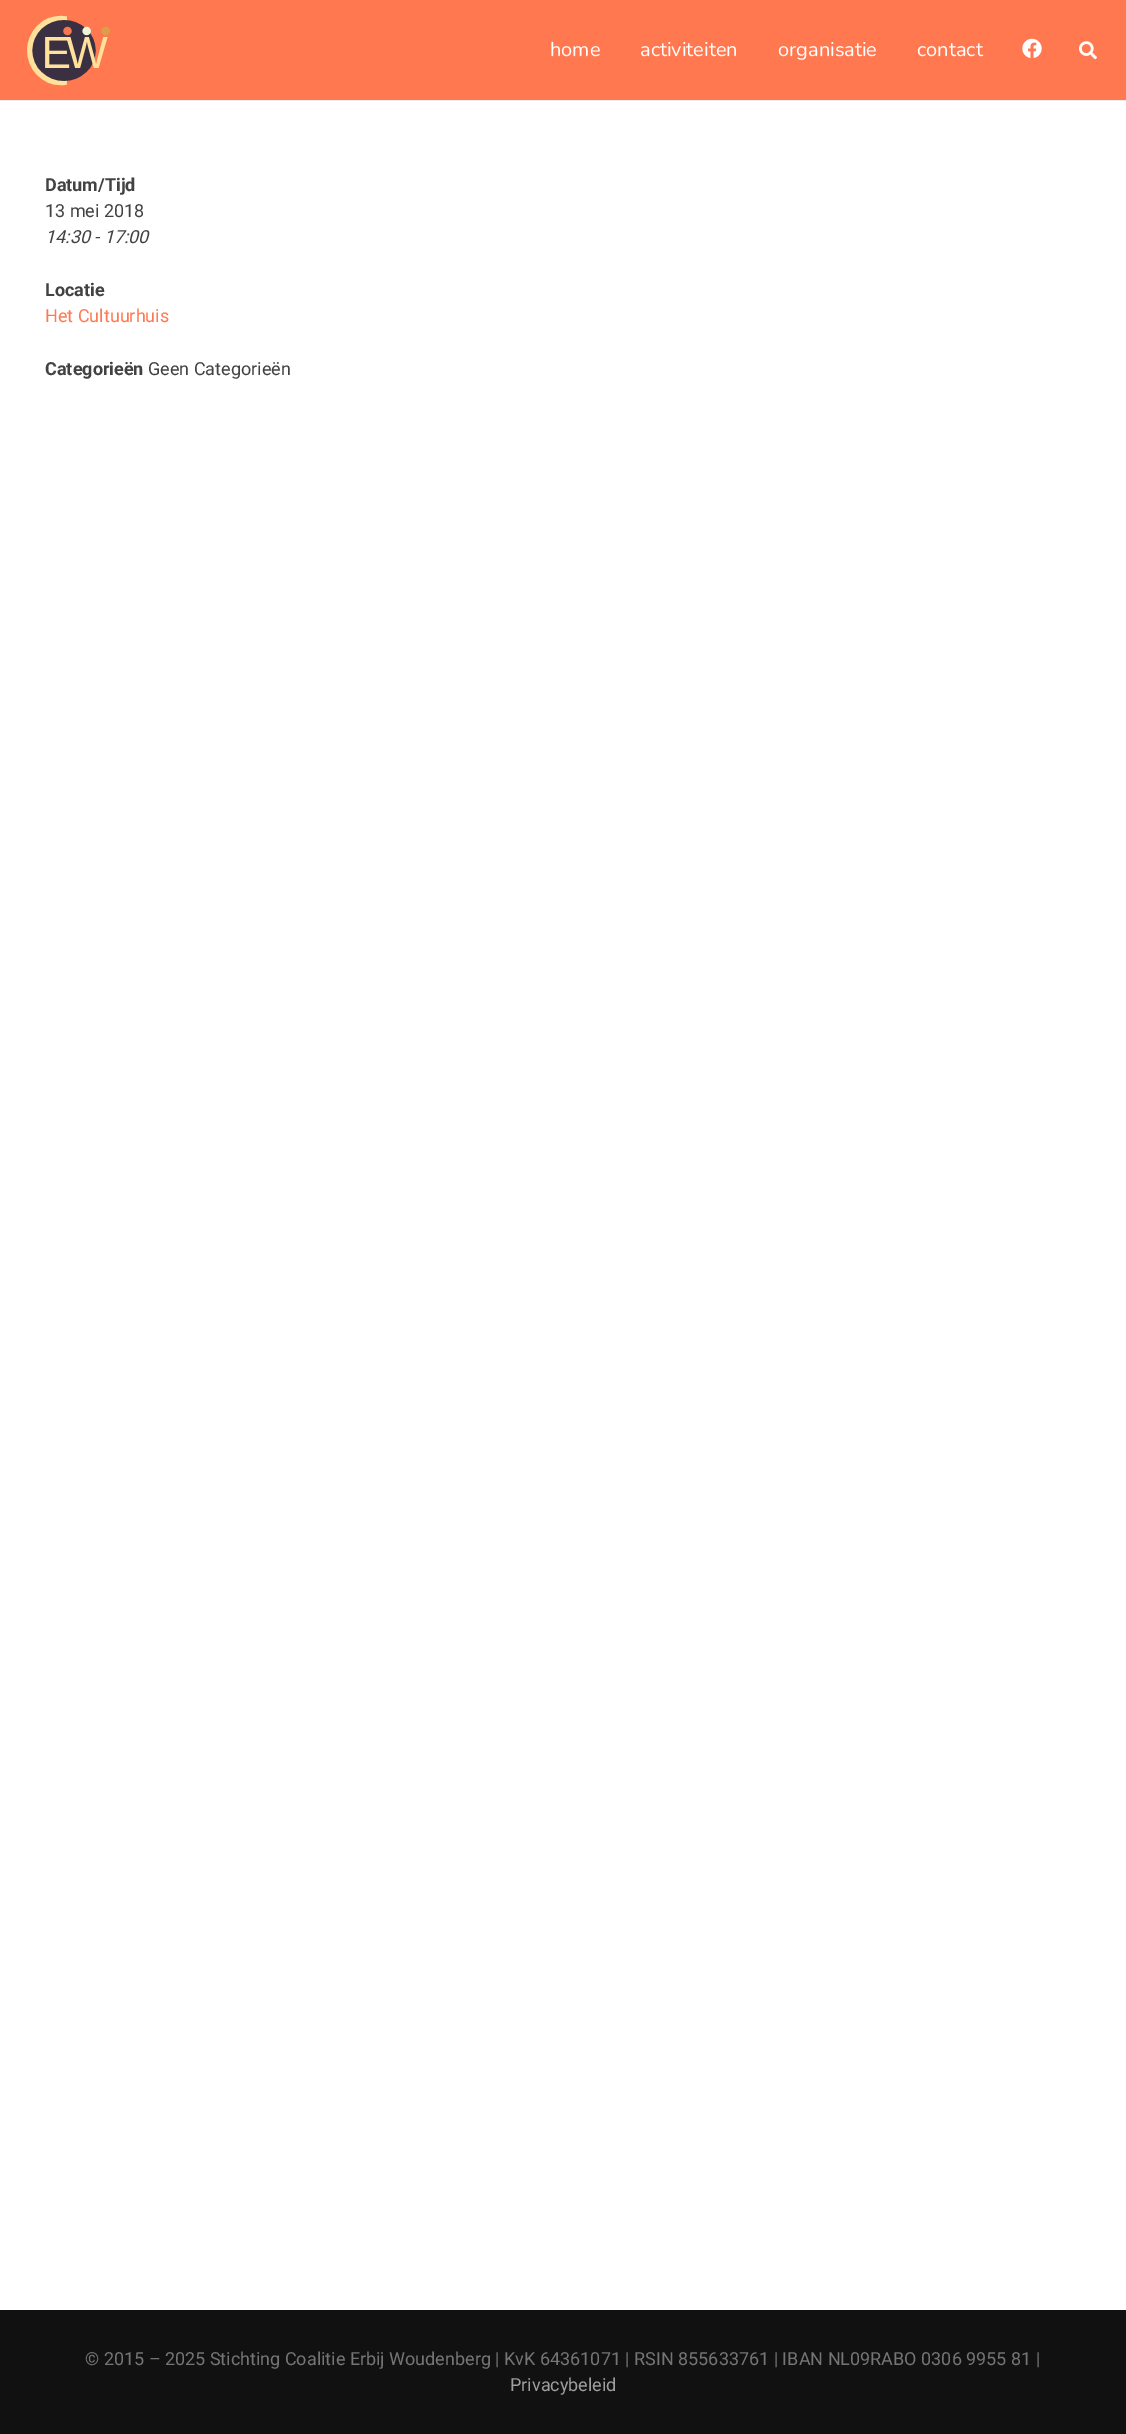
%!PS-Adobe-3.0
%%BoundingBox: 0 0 1126 2434
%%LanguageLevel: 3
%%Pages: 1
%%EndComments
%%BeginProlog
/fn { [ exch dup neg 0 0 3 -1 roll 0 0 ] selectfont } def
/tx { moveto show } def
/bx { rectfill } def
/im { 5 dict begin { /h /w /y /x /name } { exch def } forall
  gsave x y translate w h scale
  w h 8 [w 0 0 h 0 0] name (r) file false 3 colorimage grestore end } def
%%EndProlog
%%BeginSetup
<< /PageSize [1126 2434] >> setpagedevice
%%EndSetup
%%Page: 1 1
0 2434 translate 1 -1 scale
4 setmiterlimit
1 setgray
0 0 1126 2434 bx
0.922 setgray
0 100 1126 1 bx
1 0.471 0.31 setrgbcolor
0 0 1126 100 bx
(image0.raw) 27 15 83 71 im
/Nunito-Regular 20 fn
1 setgray
(home) 550 56 tx
(activiteiten) 640 56 tx
(organisatie) 778 56 tx
(contact) 917 56 tx
(image1.raw) 1022 38 20 20 im
(image2.raw) 1079 41 18 19 im
/Roboto-Bold 18 fn
0.259 setgray
(Datum/Tijd) 45 191 tx
/Roboto-Regular 18 fn
(13 mei 2018) 45 217 tx
/Roboto-Italic 18 fn
(14:30 - 17:00) 45 243 tx
/Roboto-Bold 18 fn
(Locatie) 45 296 tx
/Roboto-Regular 18 fn
1 0.471 0.31 setrgbcolor
(Het Cultuurhuis) 45 322 tx
/Roboto-Bold 18 fn
0.259 setgray
(Categorieën) 45 375 tx
/Roboto-Regular 18 fn
(Geen Categorieën) 148 375 tx
0.067 setgray
0 2310 1126 124 bx
0.459 setgray
(© 2015 – 2025 Stichting Coalitie Erbij Woudenberg | KvK 64361071 | RSIN 855633761 | IBAN NL09RABO 0306 9955 81 |) 85 2365 tx
0.62 setgray
(Privacybeleid) 510 2391 tx
showpage
%%EOF
